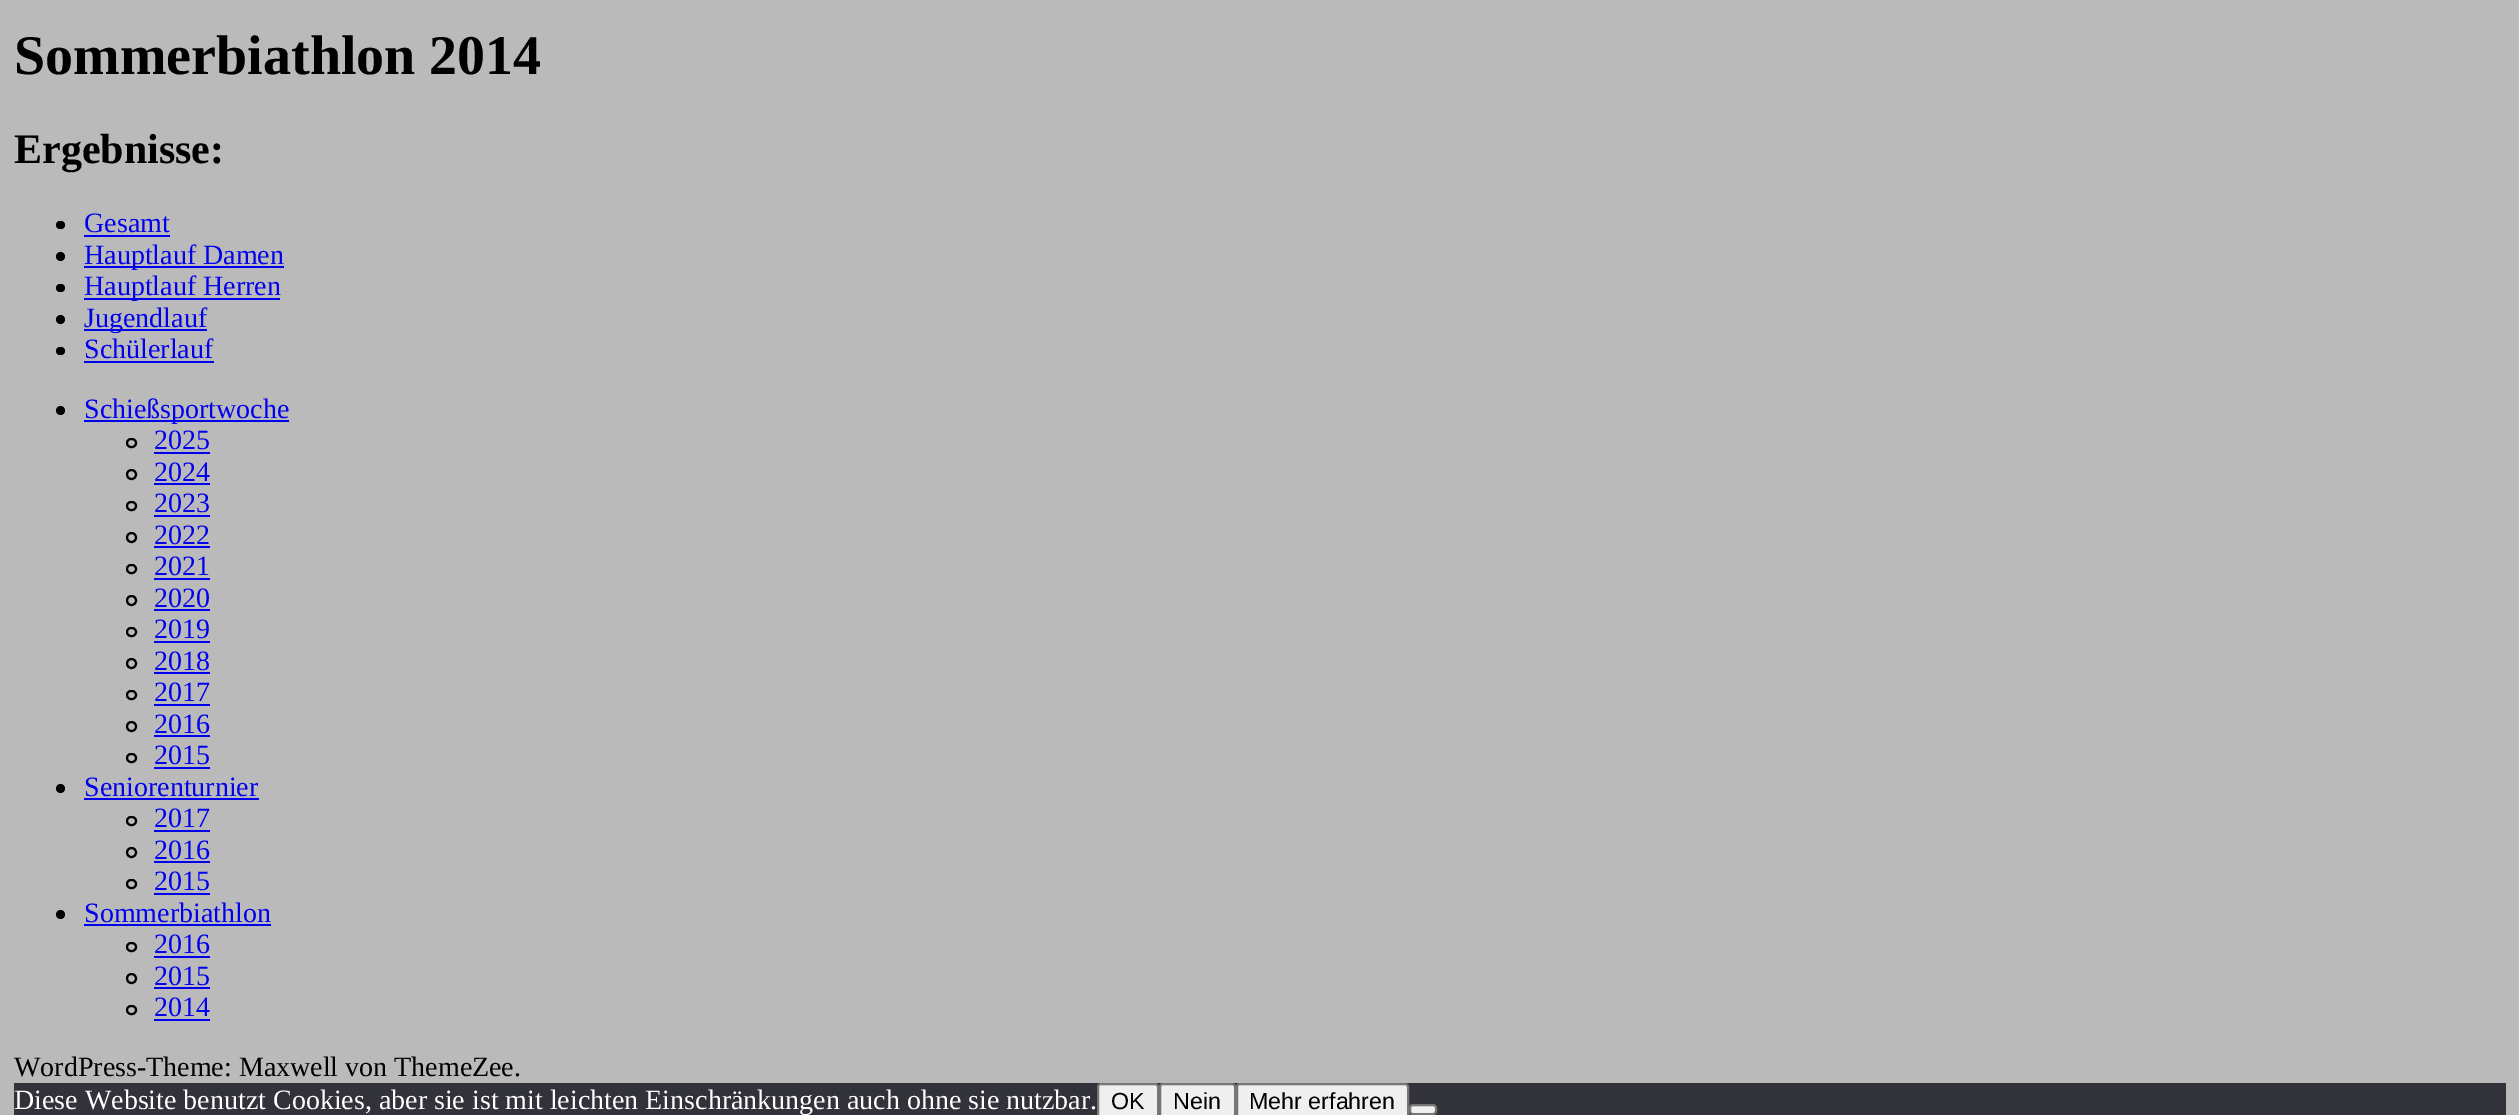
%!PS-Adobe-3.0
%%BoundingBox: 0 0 2519 1115
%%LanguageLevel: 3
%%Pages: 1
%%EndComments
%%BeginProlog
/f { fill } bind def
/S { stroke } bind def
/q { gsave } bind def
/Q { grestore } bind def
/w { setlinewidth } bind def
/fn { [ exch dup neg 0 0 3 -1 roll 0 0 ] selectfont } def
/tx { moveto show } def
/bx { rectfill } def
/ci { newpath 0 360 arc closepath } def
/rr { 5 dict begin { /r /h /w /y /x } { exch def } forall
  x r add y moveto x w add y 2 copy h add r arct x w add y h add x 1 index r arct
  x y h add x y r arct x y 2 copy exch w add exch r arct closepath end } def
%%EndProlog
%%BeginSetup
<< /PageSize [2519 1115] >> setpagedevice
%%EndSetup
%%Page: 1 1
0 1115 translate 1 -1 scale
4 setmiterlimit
0.729 setgray
0 0 2519 1115 bx
/LiberationSerif-Bold 56 fn
0 setgray
(Sommerbiathlon 2014) 14 74 tx
/LiberationSerif-Bold 42 fn
(Ergebnisse:) 14 163 tx
56 221 9 8 4 rr f
/LiberationSerif-Regular 28 fn
0 0 0.933 setrgbcolor
(Gesamt) 84 232 tx
84 235 86 2 bx
0 setgray
60.5 256.5 4.5 ci f
0 0 0.933 setrgbcolor
84 266 200 2 bx
(Hauptlauf Damen) 84 264 tx
0 setgray
56 284 9 8 4 rr f
0 0 0.933 setrgbcolor
84 298 196 2 bx
(Hauptlauf Herren) 84 295 tx
0 setgray
60.5 319.5 4.5 ci f
0 0 0.933 setrgbcolor
84 329 123 2 bx
(Jugendlauf) 84 327 tx
0 setgray
56 347 9 8 4 rr f
0 0 0.933 setrgbcolor
(Schülerlauf) 84 358 tx
84 361 130 2 bx
0 setgray
60.5 410.5 4.5 ci f
0 0 0.933 setrgbcolor
84 420 205 2 bx
(Schießsportwoche) 84 418 tx
0 setgray
2 w
127 439 9 8 4 rr S
0 0 0.933 setrgbcolor
(2025) 154 449 tx
154 452 56 2 bx
0 setgray
131.5 474.5 4.5 ci S
0 0 0.933 setrgbcolor
(2024) 154 481 tx
154 483 56 2 bx
0 setgray
127 502 9 8 4 rr S
0 0 0.933 setrgbcolor
(2023) 154 512 tx
154 515 56 2 bx
0 setgray
131.5 537.5 4.5 ci S
0 0 0.933 setrgbcolor
(2022) 154 544 tx
154 546 56 2 bx
0 setgray
127 565 9 8 4 rr S
0 0 0.933 setrgbcolor
(2021) 154 575 tx
154 578 56 2 bx
0 setgray
131.5 600.5 4.5 ci S
0 0 0.933 setrgbcolor
(2020) 154 607 tx
154 609 56 2 bx
0 setgray
127 628 9 8 4 rr S
0 0 0.933 setrgbcolor
(2019) 154 638 tx
154 641 56 2 bx
0 setgray
131.5 663.5 4.5 ci S
0 0 0.933 setrgbcolor
(2018) 154 670 tx
154 672 56 2 bx
0 setgray
127 691 9 8 4 rr S
0 0 0.933 setrgbcolor
(2017) 154 701 tx
154 704 56 2 bx
0 setgray
131.5 726.5 4.5 ci S
0 0 0.933 setrgbcolor
(2016) 154 733 tx
154 735 56 2 bx
0 setgray
127 754 9 8 4 rr S
0 0 0.933 setrgbcolor
(2015) 154 764 tx
154 767 56 2 bx
0 setgray
60.5 788.5 4.5 ci f
0 0 0.933 setrgbcolor
(Seniorenturnier) 84 796 tx
84 798 175 2 bx
0 setgray
127 817 9 8 4 rr S
0 0 0.933 setrgbcolor
(2017) 154 827 tx
154 830 56 2 bx
0 setgray
131.5 852.5 4.5 ci S
0 0 0.933 setrgbcolor
(2016) 154 859 tx
154 861 56 2 bx
0 setgray
127 880 9 8 4 rr S
0 0 0.933 setrgbcolor
(2015) 154 890 tx
154 893 56 2 bx
0 setgray
60.5 914.5 4.5 ci f
0 0 0.933 setrgbcolor
(Sommerbiathlon) 84 922 tx
84 924 187 2 bx
0 setgray
127 943 9 8 4 rr S
0 0 0.933 setrgbcolor
(2016) 154 953 tx
154 956 56 2 bx
0 setgray
131.5 978.5 4.5 ci S
0 0 0.933 setrgbcolor
(2015) 154 985 tx
154 987 56 2 bx
0 setgray
127 1006 9 8 4 rr S
0 0 0.933 setrgbcolor
(2014) 154 1016 tx
154 1019 56 2 bx
0 setgray
(WordPress-Theme: Maxwell von ThemeZee.) 14 1076 tx
0.196 0.196 0.227 setrgbcolor
14 1083 2492 32 bx
1 setgray
(Diese Website benutzt Cookies, aber sie ist mit leichten Einschränkungen auch ohne sie nutzbar.) 14 1109 tx
0.937 setgray
1098 1084 60 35 3 rr q f Q
0.463 setgray
S
/LiberationSans-Regular 23.25 fn
0 setgray
(OK) 1111 1109 tx
0.937 setgray
1160 1084 75 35 3 rr q f Q
0.463 setgray
S
0 setgray
(Nein) 1173 1109 tx
0.937 setgray
1237 1084 171 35 3 rr q f Q
0.463 setgray
S
0 setgray
(Mehr erfahren) 1249 1109 tx
0.937 setgray
1410 1105 26 9 3 rr q f Q
0.463 setgray
S
showpage
%%EOF
